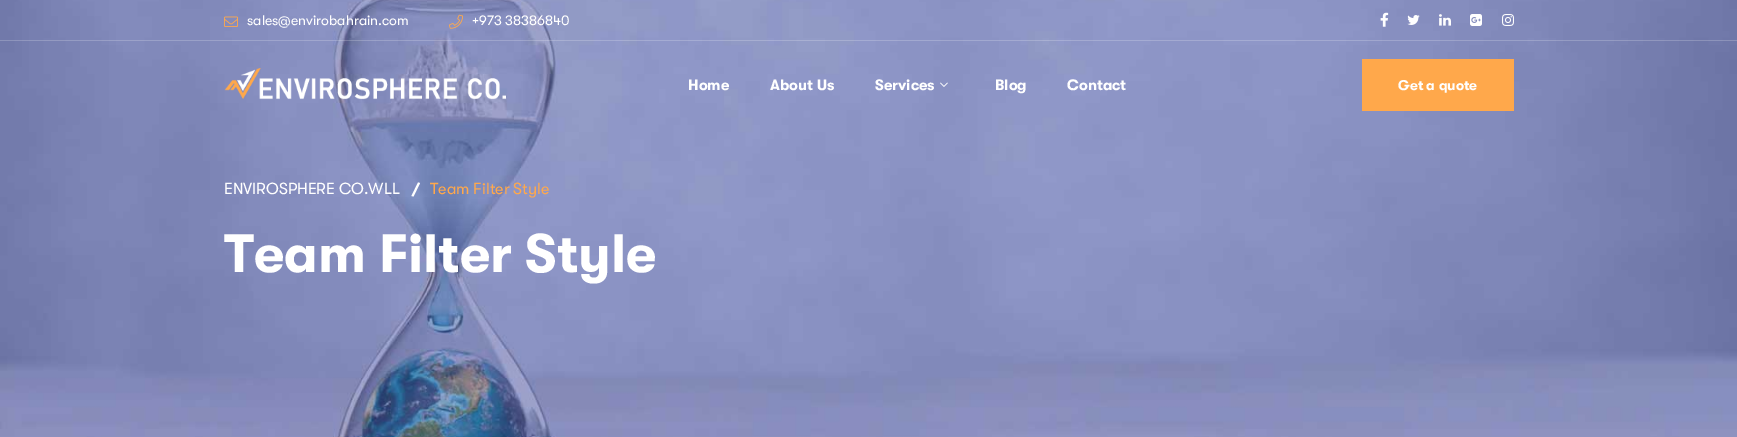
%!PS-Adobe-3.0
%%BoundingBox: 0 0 1737 437
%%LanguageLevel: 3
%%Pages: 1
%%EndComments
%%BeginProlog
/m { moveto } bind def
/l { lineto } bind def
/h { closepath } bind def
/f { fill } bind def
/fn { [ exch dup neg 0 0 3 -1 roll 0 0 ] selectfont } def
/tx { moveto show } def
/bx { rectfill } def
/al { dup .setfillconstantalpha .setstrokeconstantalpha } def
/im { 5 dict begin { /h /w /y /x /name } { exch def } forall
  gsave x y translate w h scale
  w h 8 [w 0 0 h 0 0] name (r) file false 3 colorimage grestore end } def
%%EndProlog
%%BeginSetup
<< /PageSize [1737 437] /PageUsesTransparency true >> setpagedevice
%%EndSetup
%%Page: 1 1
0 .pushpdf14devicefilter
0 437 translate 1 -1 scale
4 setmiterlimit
1 setgray
0 0 1737 437 bx
(image9.raw) 0 0 1737 437 im
0.2 al
0 40 1737 1 bx
1 al
(image0.raw) 224 16 14 11 im
/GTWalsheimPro-Regular 14 fn
(sales@envirobahrain.com) 247 25 tx
(image1.raw) 449 14 14 15 im
(+973 38386840) 472 25 tx
(image2.raw) 1380 12 9 15 im
(image3.raw) 1407 15 13 10 im
(image4.raw) 1439 14 12 12 im
(image5.raw) 1470 14 12 12 im
(image6.raw) 1502 14 12 12 im
(image7.raw) 224 68 282 32 im
/GTWalsheimPro-Bold 15 fn
(Home) 688 90 tx
(About Us) 770 90 tx
(Services) 875 90 tx
(image8.raw) 940 82 8 5 im
(Blog) 995 90 tx
(Contact) 1067 90 tx
1 0.659 0.294 setrgbcolor
1362 59 152 52 bx
/GTWalsheimPro-Bold 14 fn
1 setgray
(Get a quote) 1398 90 tx
/GTWalsheimPro-Regular 16 fn
(ENVIROSPHERE CO.WLL) 224 194 tx
418 182.5 m 420 183 l 413.5 196.5 l 411.5 196 l h f
1 0.659 0.294 setrgbcolor
(Team Filter Style) 430 194 tx
/GTWalsheimPro-Bold 54 fn
1 setgray
(Team Filter Style) 224 272 tx
.poppdf14devicefilter showpage
%%EOF
